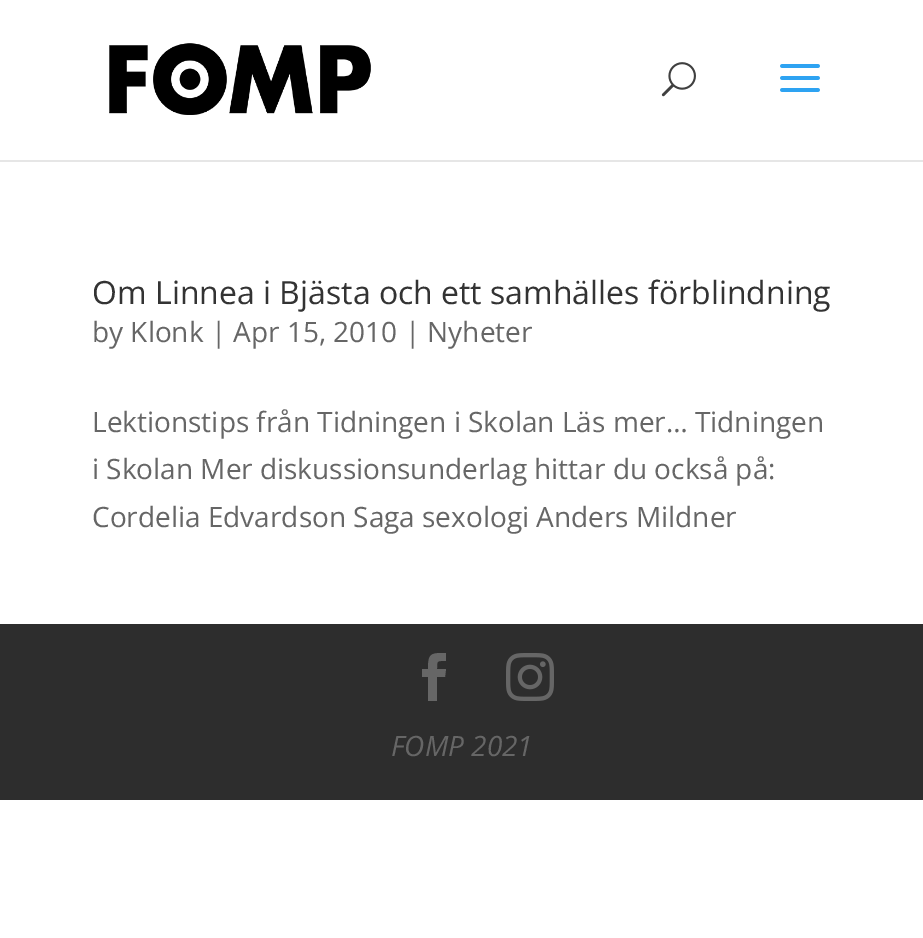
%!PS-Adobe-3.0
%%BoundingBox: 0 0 923 938
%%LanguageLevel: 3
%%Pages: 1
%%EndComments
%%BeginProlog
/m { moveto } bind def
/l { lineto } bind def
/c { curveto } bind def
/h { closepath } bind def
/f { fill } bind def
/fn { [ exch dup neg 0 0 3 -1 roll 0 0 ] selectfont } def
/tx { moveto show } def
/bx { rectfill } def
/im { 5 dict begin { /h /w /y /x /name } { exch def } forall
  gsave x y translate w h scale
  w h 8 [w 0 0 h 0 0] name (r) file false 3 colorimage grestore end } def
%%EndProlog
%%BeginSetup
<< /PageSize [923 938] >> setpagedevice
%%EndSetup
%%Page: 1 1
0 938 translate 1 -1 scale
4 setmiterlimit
1 setgray
0 0 923 938 bx
0.902 setgray
0 160 923 2 bx
(image0.raw) 109 43 262 72 im
(image1.raw) 661 62 35 35 im
(image2.raw) 780 64 40 28 im
/OpenSans-Regular 32 fn
0.2 setgray
(Om Linnea i Bjästa och ett samhälles förblindning) 92 304 tx
/OpenSans-Regular 28 fn
0.4 setgray
(by Klonk | Apr 15, 2010 | Nyheter) 92 342 tx
(Lektionstips från Tidningen i Skolan Läs mer… Tidningen) 92 432 tx
(i Skolan Mer diskussionsunderlag hittar du också på:) 92 479 tx
(Cordelia Edvardson Saga sexologi Anders Mildner) 92 527 tx
0.176 setgray
0 624 923 176 bx
0.4 setgray
428 701 m 437 701 l 437 677 l 445 677 l 446 669 l 437 669 l 437 660 437 661 446 661 c 446 653 l 431 653 428 653 428 669 c 422 669 l 422 677 l 428 677 l h f
(image3.raw) 506 653 48 48 im
/OpenSans-Italic 28 fn
(FOMP 2021) 391 756 tx
showpage
%%EOF
